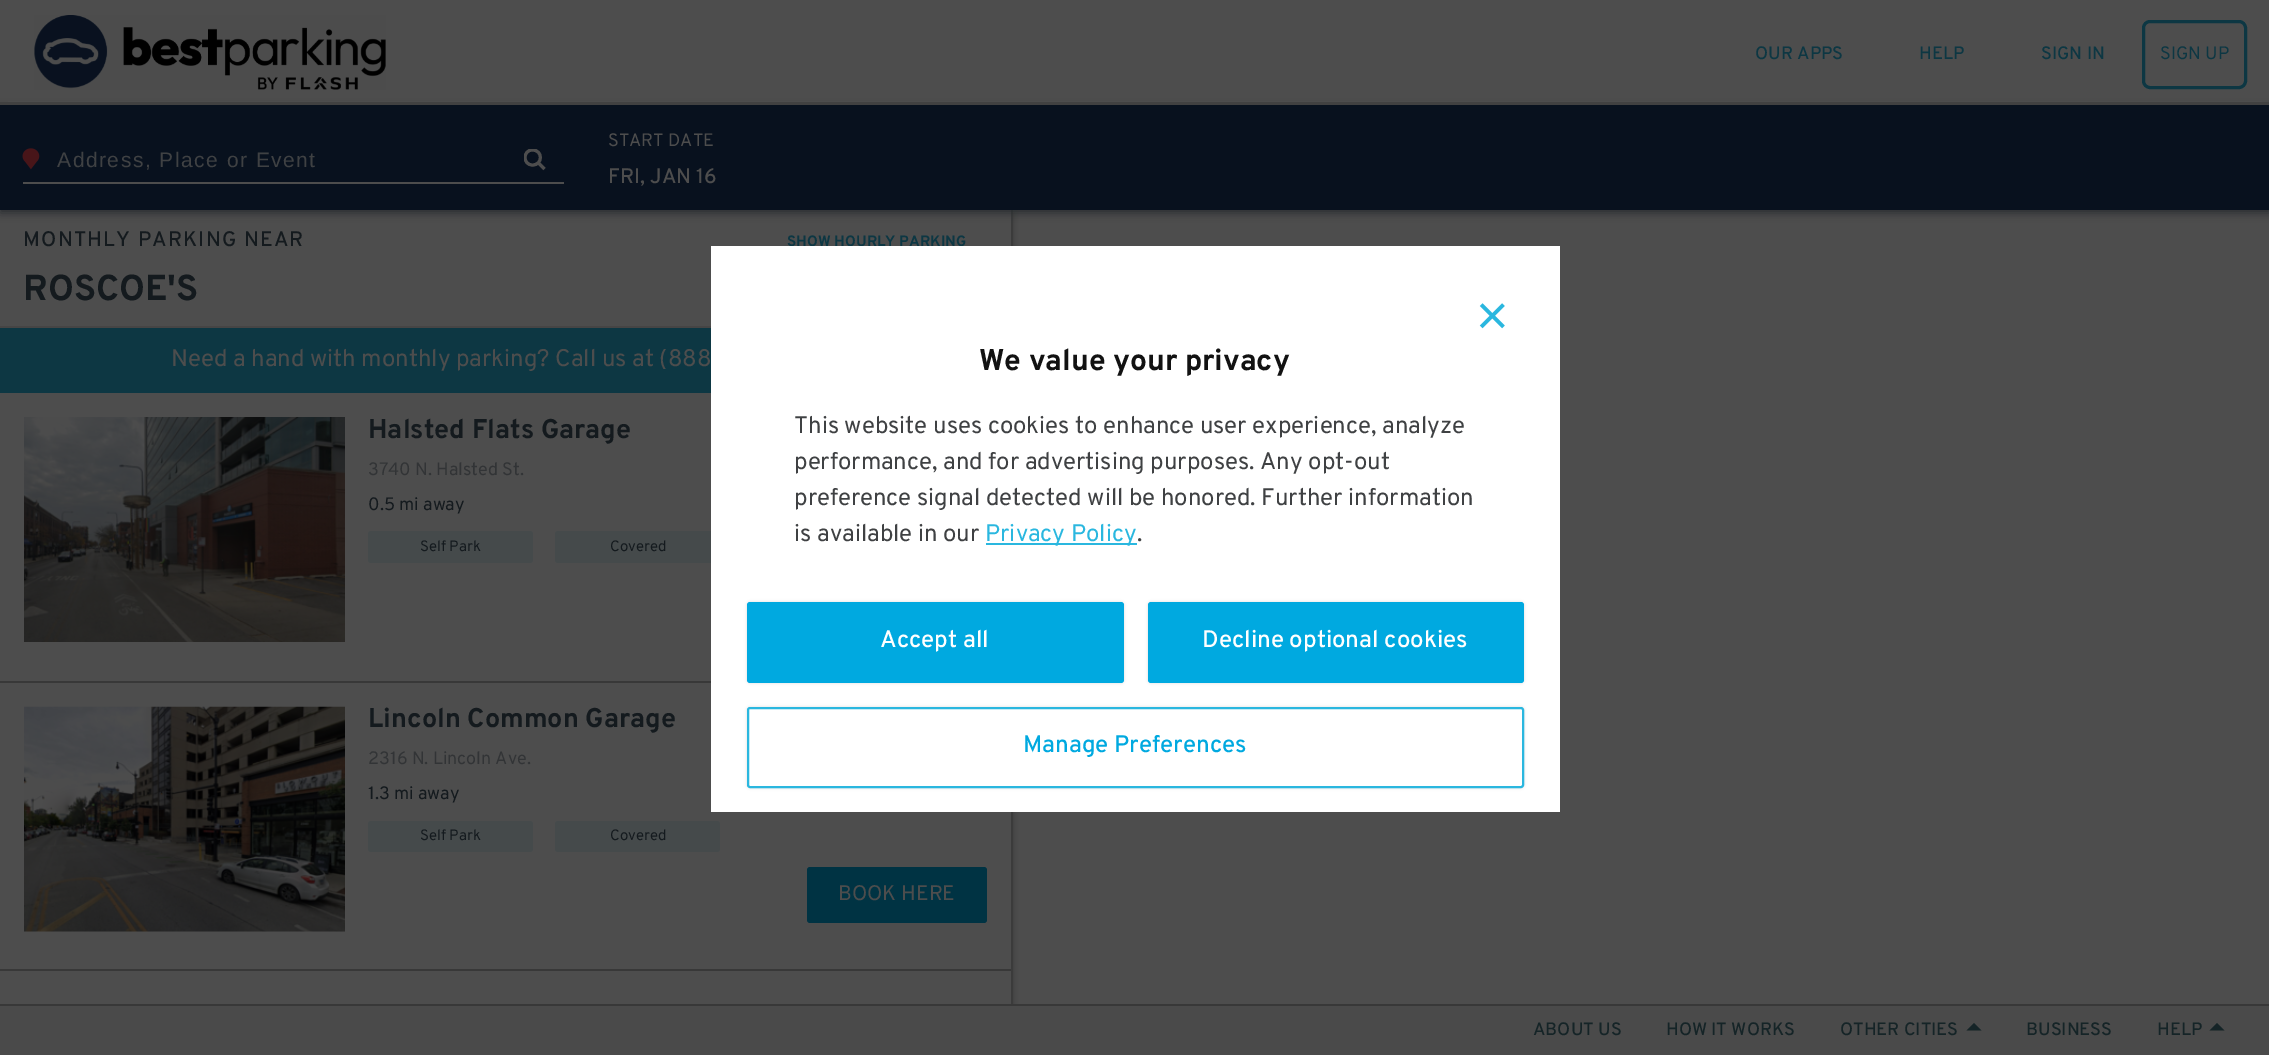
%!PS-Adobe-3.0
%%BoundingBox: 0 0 2269 1055
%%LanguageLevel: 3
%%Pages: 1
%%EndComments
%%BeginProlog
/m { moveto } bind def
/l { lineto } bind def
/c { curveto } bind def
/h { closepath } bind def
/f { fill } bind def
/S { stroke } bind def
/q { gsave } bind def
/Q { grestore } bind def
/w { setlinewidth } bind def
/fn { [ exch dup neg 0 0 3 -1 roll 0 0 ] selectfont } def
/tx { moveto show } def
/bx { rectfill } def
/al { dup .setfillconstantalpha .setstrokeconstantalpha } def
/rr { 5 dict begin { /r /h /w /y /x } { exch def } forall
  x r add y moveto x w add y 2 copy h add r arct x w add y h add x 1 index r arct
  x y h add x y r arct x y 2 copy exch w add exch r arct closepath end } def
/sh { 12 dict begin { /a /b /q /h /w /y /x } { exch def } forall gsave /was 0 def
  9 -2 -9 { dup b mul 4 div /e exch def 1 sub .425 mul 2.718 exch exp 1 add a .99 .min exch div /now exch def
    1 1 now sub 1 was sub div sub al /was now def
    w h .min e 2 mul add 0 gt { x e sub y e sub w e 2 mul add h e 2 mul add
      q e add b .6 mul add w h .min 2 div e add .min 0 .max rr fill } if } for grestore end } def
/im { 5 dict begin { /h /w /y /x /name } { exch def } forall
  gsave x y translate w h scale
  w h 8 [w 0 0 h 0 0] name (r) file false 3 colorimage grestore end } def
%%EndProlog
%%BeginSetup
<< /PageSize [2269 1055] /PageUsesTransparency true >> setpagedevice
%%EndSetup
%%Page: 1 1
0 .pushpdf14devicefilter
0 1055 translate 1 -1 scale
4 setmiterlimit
0.302 setgray
0 0 2269 1055 bx
q
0 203 m 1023 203 l 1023 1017 l 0 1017 l h 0 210 m 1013 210 l 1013 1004 l 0 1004 l h eoclip newpath
0 setgray
0 213 1013 794 0 3 0.24 sh
Q
0.24 al
0 setgray
1011 210 2 794 bx
1 al
0.157 0.173 0.184 setrgbcolor
0 108 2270 105 0 4.5 1 sh
0.302 setgray
8 101 2254 1 bx
0.255 setgray
0 102 2269 3 bx
(image0.raw) 34 15 352 75 im
/Overpass-Medium 18 fn
0.051 0.216 0.263 setrgbcolor
(OUR APPS) 1755 59 tx
(HELP) 1919 59 tx
(SIGN IN) 2041 59 tx
3 w
2143.5 21.5 102 66 6.5 rr S
/Overpass-Regular 18 fn
(SIGN UP) 2160 59 tx
0.031 0.067 0.118 setrgbcolor
0 105 2269 105 bx
0.302 setgray
23 182 16 2 bx
(image1.raw) 22 148 18 22 im
q
524 149 22 22 rectclip
1 setlinecap
544.5 169 m 538.5 163 l h 532.5 150 m 543 150 543 165 532.5 165 c 522.5 165 522.5 150 532.5 150 c h S
Q
39 182 525 2 bx
/LiberationSans-Regular 21 fn
0.247 0.255 0.263 setrgbcolor
57 167 m 1.5 0 (Address, Place or Event) ashow
/Overpass-Regular 18 fn
0.302 setgray
(START DATE) 608 146 tx
/Overpass-Medium 21 fn
(FRI, JAN 16) 608 183 tx
0.275 0.271 0.271 setrgbcolor
0 326 711 2 bx
0.078 0.102 0.118 setrgbcolor
23 246 m 1.2 0 (MONTHLY PARKING NEAR) ashow
/Overpass-Bold 15 fn
0.051 0.216 0.263 setrgbcolor
(SHOW HOURLY PARKING) 787 246 tx
/Overpass-Bold 36 fn
0.078 0.102 0.118 setrgbcolor
(ROSCOE'S) 23 300 tx
0.051 0.216 0.263 setrgbcolor
0 328 711 65 bx
/Overpass-Regular 24 fn
0.302 setgray
(Need a hand with monthly parking? Call us at \(888) 171 366 tx
0.22 setgray
0 681 711 2 bx
(image2.raw) 24 417 321 225 im
/Overpass-Bold 27 fn
0.078 0.102 0.118 setrgbcolor
(Halsted Flats Garage) 368 438 tx
/Overpass-Regular 18 fn
0.196 0.204 0.212 setrgbcolor
(3740 N. Halsted St.) 368 475 tx
0.078 0.102 0.118 setrgbcolor
(0.5 mi away) 368 510 tx
0.271 0.29 0.294 setrgbcolor
368 531 165 32 3 rr f
/Overpass-Regular 15 fn
0.078 0.102 0.118 setrgbcolor
(Self Park) 420 551 tx
0.271 0.29 0.294 setrgbcolor
555 531 165 32 3 rr f
0.078 0.102 0.118 setrgbcolor
(Covered) 610 551 tx
0.22 setgray
0 969 1011 2 bx
(image3.raw) 24 706 321 226 im
/Overpass-Bold 27 fn
0.078 0.102 0.118 setrgbcolor
(Lincoln Common Garage) 368 727 tx
/Overpass-Regular 18 fn
0.196 0.204 0.212 setrgbcolor
(2316 N. Lincoln Ave.) 368 764 tx
0.078 0.102 0.118 setrgbcolor
(1.3 mi away) 368 799 tx
0.271 0.29 0.294 setrgbcolor
368 821 165 31 3 rr f
/Overpass-Regular 15 fn
0.078 0.102 0.118 setrgbcolor
(Self Park) 420 840 tx
0.271 0.29 0.294 setrgbcolor
555 821 165 31 3 rr f
0.078 0.102 0.118 setrgbcolor
(Covered) 610 840 tx
0 0.2 0.263 setrgbcolor
807 867 180 56 3 rr f
/Overpass-Regular 21 fn
0.302 setgray
(BOOK HERE) 838 900 tx
0.29 setgray
0 1006 2269 49 bx
0.22 setgray
0 1004 2269 2 bx
/Overpass-Medium 18 fn
0.082 0.141 0.153 setrgbcolor
(ABOUT US) 1533 1035 tx
(HOW IT WORKS) 1666 1035 tx
(OTHER CITIES) 1840 1035 tx
1981.5 1030.5 m 1966.5 1030.5 l 1974 1023 l h f
(BUSINESS) 2026 1035 tx
(HELP) 2157 1035 tx
2224.5 1030.5 m 2209.5 1030.5 l 2217 1023 l h f
1 setgray
711 246 849 566 bx
(image4.raw) 1479 303 26 26 im
/Overpass-Bold 30 fn
0.071 setgray
(We value your privacy) 979 370 tx
/Overpass-Regular 24 fn
0.247 0.255 0.263 setrgbcolor
(This website uses cookies to enhance user experience, analyze) 794 433 tx
(performance, and for advertising purposes. Any opt-out) 794 469 tx
(preference signal detected will be honored. Further information) 794 505 tx
(is available in our) 794 541 tx
0.165 0.718 0.875 setrgbcolor
986 543 151 2 bx
(Privacy Policy) 985 541 tx
0.247 0.255 0.263 setrgbcolor
(.) 1137 541 tx
0 setgray
747 602 377 81 3 1.5 0.12 sh
0 0.663 0.878 setrgbcolor
747 602 377 81 3 rr f
/Overpass-Medium 24 fn
1 setgray
(Accept all) 880 647 tx
0 setgray
1148 602 376 81 3 1.5 0.12 sh
0 0.663 0.878 setrgbcolor
1148 602 376 81 3 rr f
1 setgray
(Decline optional cookies) 1202 647 tx
q
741 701 m 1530 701 l 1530 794 l 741 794 l h 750 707 m 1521 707 l 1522.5 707 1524 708.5 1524 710 c 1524 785 l 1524 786.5 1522.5 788 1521 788 c 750 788 l 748.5 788 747 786.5 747 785 c 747 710 l 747 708.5 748.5 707 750 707 c h eoclip newpath
0 setgray
747 707 777 81 3 1.5 0.12 sh
Q
0.165 0.718 0.875 setrgbcolor
2 w
748 708 775 79 2 rr S
0 0.663 0.878 setrgbcolor
(Manage Preferences) 1023 752 tx
.poppdf14devicefilter showpage
%%EOF
